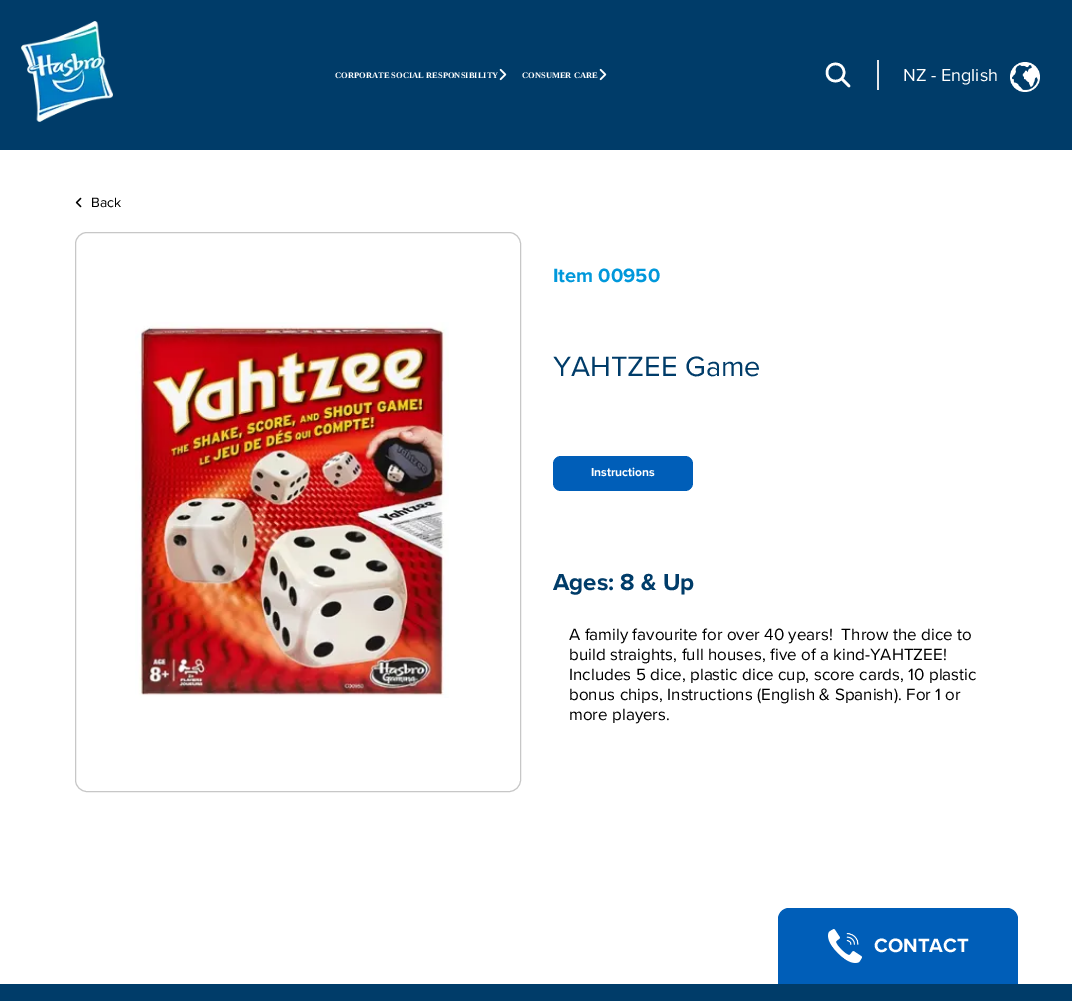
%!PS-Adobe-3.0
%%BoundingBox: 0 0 1072 1001
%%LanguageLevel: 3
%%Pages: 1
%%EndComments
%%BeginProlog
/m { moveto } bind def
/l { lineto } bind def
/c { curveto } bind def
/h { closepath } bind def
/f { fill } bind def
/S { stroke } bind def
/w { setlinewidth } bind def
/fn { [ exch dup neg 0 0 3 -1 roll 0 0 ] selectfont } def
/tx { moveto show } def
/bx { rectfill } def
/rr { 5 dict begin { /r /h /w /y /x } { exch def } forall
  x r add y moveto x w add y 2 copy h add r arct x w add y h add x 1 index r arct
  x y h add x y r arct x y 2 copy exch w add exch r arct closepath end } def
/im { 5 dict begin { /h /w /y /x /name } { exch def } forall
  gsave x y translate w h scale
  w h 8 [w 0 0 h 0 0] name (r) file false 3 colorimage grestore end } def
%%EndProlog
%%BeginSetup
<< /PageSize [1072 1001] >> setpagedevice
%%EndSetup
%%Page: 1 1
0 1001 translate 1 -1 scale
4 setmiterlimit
1 setgray
0 0 1072 1001 bx
0 0.235 0.412 setrgbcolor
0 0 1072 150 bx
(image0.raw) 21 21 92 101 im
/LiberationSerif-Bold 8.5 fn
1 setgray
(CORPORATE SOCIAL RESPONSIBILITY) 335 78 tx
(image1.raw) 499 68 8 13 im
(CONSUMER CARE) 522 78 tx
(image1.raw) 599 68 8 13 im
0.898 0.906 0.922 setrgbcolor
877 60 2 30 bx
1 setgray
2.5 w
1 setlinecap
1 setlinejoin
849 86 m 842 79 l 844 72.5 m 844 84 827 84 827 72.5 c 827 61 844 61 844 72.5 c h S
/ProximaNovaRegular-Regular 18 fn
(NZ - English) 903 81 tx
(image2.raw) 1010 62 30 30 im
(image3.raw) 75 197 7 11 im
/ProximaNovaRegular-Regular 14 fn
0 setgray
(Back) 91 207 tx
0.78 setgray
1 w
0 setlinecap
0 setlinejoin
75.5 232.5 445 559 11.5 rr S
(image4.raw) 135 322 314 376 im
/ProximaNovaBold-Bold 20 fn
0 0.596 0.859 setrgbcolor
(Item 00950) 553 282 tx
/ProximaNovaRegular-Regular 29 fn
0 0.235 0.412 setrgbcolor
(YAHTZEE Game) 553 376 tx
0 0.369 0.722 setrgbcolor
553 456 140 35 8 rr f
/ProximaNovaBold-Bold 12 fn
1 setgray
(Instructions) 591 476 tx
/ProximaNovaBold-Bold 24 fn
0 0.235 0.412 setrgbcolor
(Ages: 8 & Up) 553 590 tx
/ProximaNovaRegular-Regular 17 fn
0 setgray
(A family favourite for over 40 years!  Throw the dice to) 569 640 tx
(build straights, full houses, five of a kind-YAHTZEE!) 569 660 tx
(Includes 5 dice, plastic dice cup, score cards, 10 plastic) 569 680 tx
(bonus chips, Instructions \(English & Spanish\). For 1 or) 569 700 tx
(more players.) 569 720 tx
0 0.369 0.722 setrgbcolor
789 908 m 1007 908 l 1013 908 1018 913 1018 919 c 1018 984 l 778 984 l 778 919 l 778 913 783 908 789 908 c h f
(image5.raw) 828 929 34 34 im
/ProximaNovaBold-Bold 20 fn
1 setgray
(CONTACT) 874 952 tx
0 0.235 0.412 setrgbcolor
0 984 1072 17 bx
showpage
%%EOF
